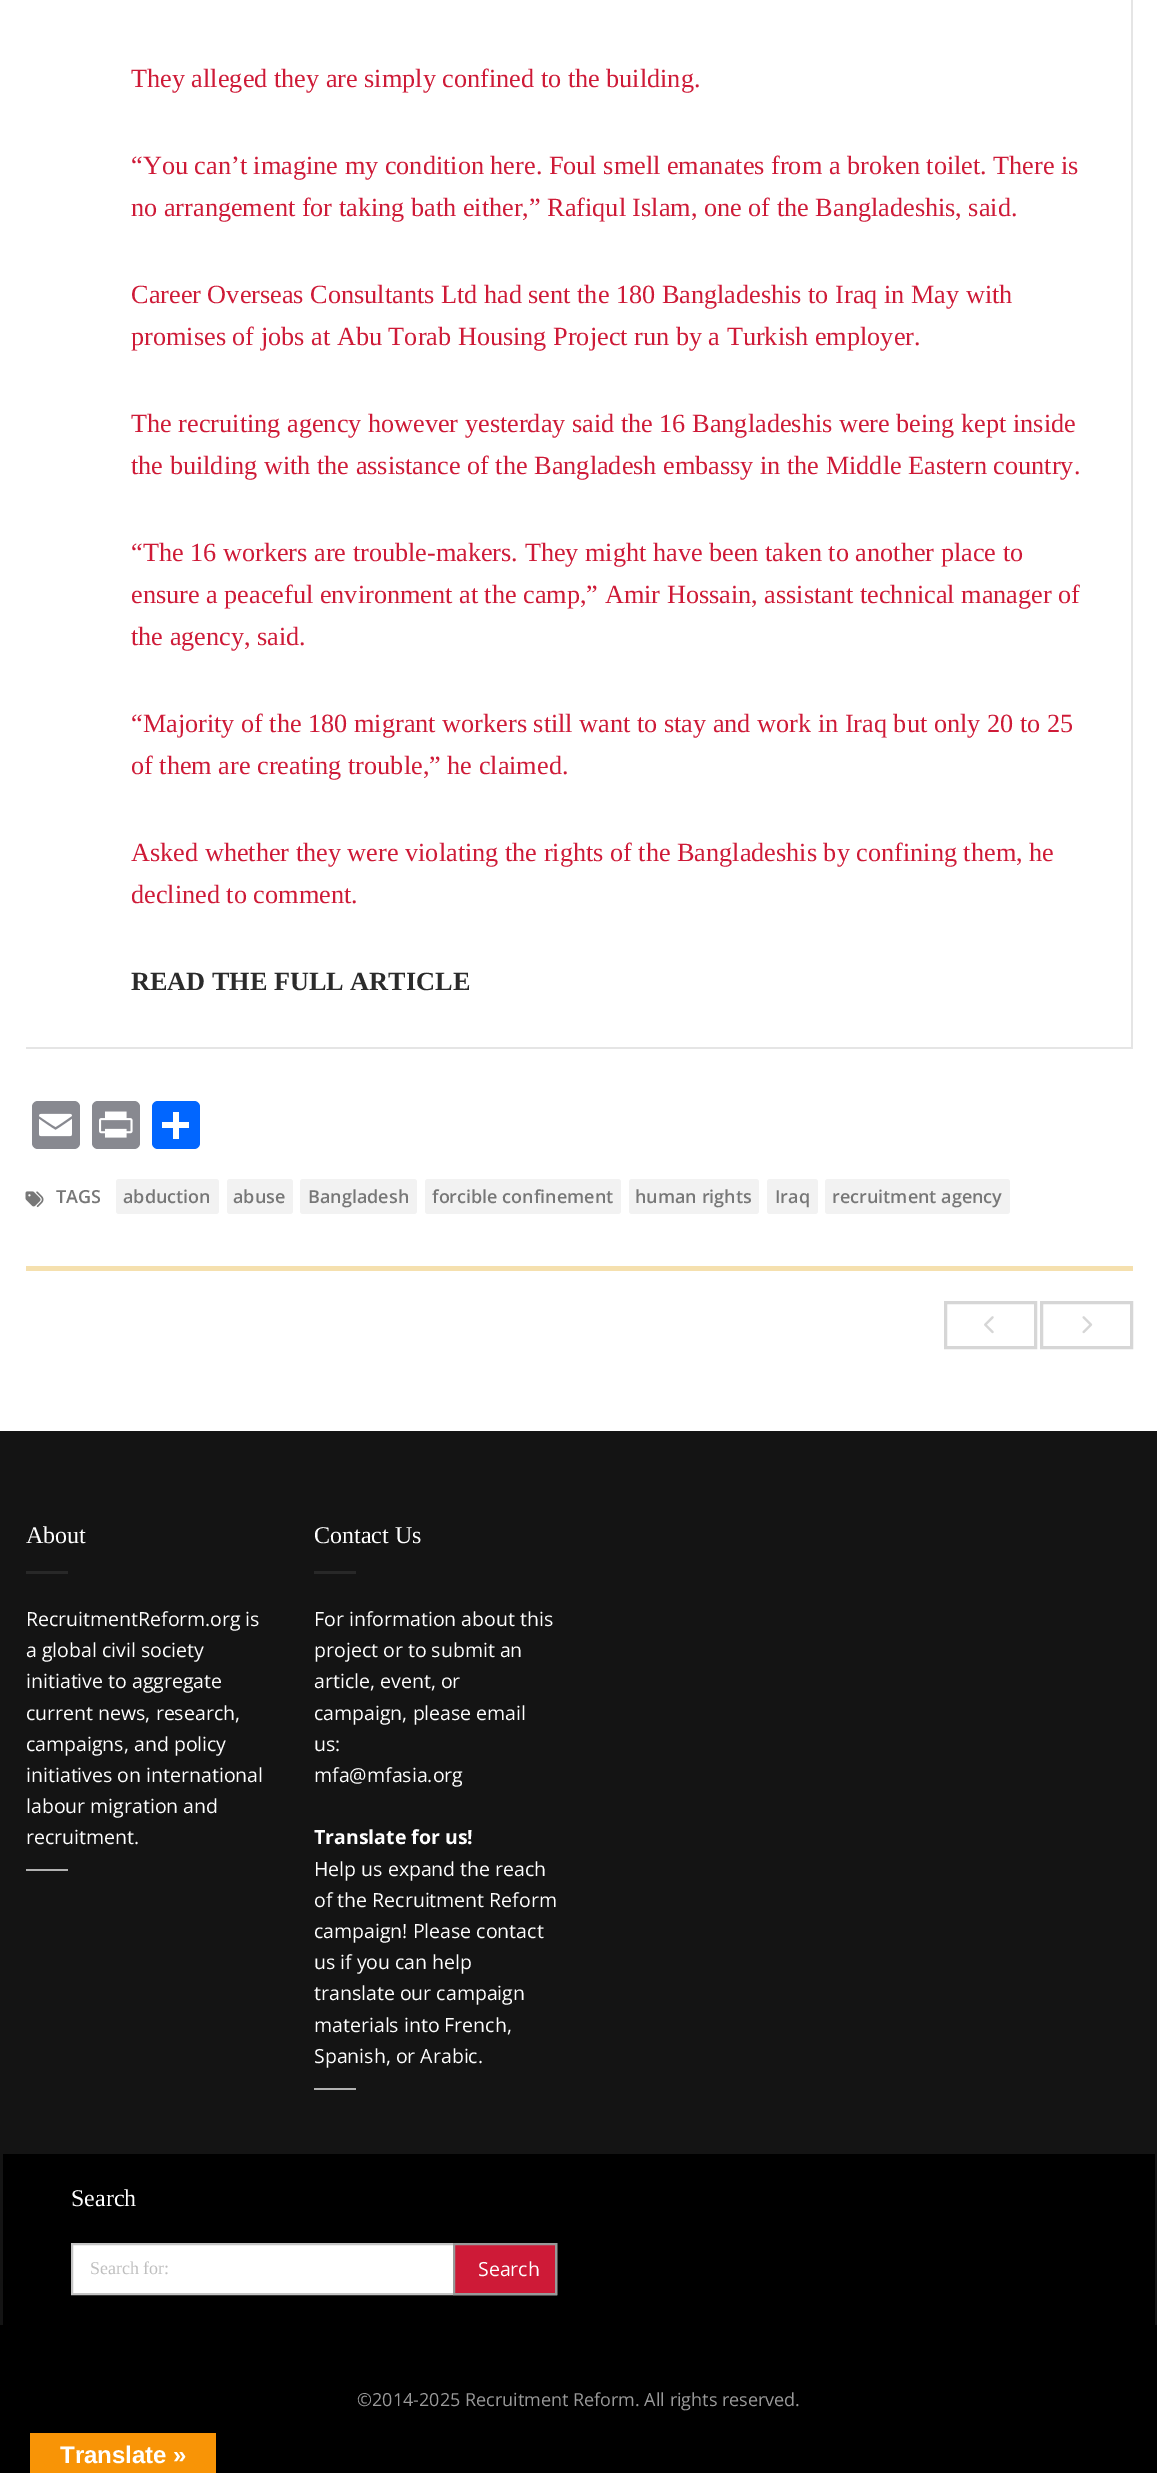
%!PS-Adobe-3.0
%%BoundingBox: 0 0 1157 2473
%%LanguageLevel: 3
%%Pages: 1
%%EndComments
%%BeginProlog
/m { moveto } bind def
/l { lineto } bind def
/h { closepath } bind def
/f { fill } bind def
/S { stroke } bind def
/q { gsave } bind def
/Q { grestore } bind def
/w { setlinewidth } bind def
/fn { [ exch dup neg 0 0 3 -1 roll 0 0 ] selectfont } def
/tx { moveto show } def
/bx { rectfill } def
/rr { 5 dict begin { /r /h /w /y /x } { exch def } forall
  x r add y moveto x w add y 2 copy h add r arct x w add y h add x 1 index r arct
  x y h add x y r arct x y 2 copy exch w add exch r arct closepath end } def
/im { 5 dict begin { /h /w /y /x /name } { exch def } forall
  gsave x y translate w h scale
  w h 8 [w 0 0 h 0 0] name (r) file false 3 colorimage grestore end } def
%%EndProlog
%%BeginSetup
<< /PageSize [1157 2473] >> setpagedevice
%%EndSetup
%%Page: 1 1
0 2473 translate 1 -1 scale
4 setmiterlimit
1 setgray
0 0 1157 2473 bx
0.898 setgray
1131 0 2 1049 bx
26 1047 1107 2 bx
/LiberationSerif-Regular 26.25 fn
0.808 0.102 0.216 setrgbcolor
(They alleged they are simply confined to the building.) 131 87 tx
(“You can’t imagine my condition here. Foul smell emanates from a broken toilet. There is) 131 174 tx
(no arrangement for taking bath either,” Rafiqul Islam, one of the Bangladeshis, said.) 131 216 tx
(Career Overseas Consultants Ltd had sent the 180 Bangladeshis to Iraq in May with) 131 303 tx
(promises of jobs at Abu Torab Housing Project run by a Turkish employer.) 131 345 tx
(The recruiting agency however yesterday said the 16 Bangladeshis were being kept inside) 131 432 tx
(the building with the assistance of the Bangladesh embassy in the Middle Eastern country.) 131 474 tx
(“The 16 workers are trouble-makers. They might have been taken to another place to) 131 561 tx
(ensure a peaceful environment at the camp,” Amir Hossain, assistant technical manager of) 131 603 tx
(the agency, said.) 131 645 tx
(“Majority of the 180 migrant workers still want to stay and work in Iraq but only 20 to 25) 131 732 tx
(of them are creating trouble,” he claimed.) 131 774 tx
(Asked whether they were violating the rights of the Bangladeshis by confining them, he) 131 861 tx
(declined to comment.) 131 903 tx
/LiberationSerif-Bold 26.25 fn
0.169 setgray
(READ THE FULL ARTICLE) 131 990 tx
0.533 0.537 0.565 setrgbcolor
32 1101 48 48 6 rr f
(image0.raw) 39 1113 33 24 im
92 1101 48 48 6 rr f
(image1.raw) 99 1111 34 27 im
0.004 0.4 1 setrgbcolor
152 1101 48 48 6 rr f
1 setgray
173 1112 6 27 bx
162 1122 27 6 bx
0.961 0.878 0.682 setrgbcolor
26 1266 1107 5 bx
(image2.raw) 25 1191 19 17 im
/OpenSans-SemiBold 18 fn
0.467 setgray
(TAGS) 56 1203 tx
0.949 setgray
116 1179 103 35 3 rr f
0.467 setgray
(abduction) 123 1203 tx
0.949 setgray
227 1179 66 35 3 rr f
0.467 setgray
(abuse) 233 1203 tx
0.949 setgray
300 1179 117 35 3 rr f
0.467 setgray
(Bangladesh) 308 1203 tx
0.949 setgray
425 1179 196 35 3 rr f
0.467 setgray
(forcible confinement) 432 1203 tx
0.949 setgray
629 1179 130 35 3 rr f
0.467 setgray
(human rights) 635 1203 tx
0.949 setgray
767 1179 51 35 3 rr f
0.467 setgray
(Iraq) 775 1203 tx
0.949 setgray
825 1179 185 35 3 rr f
0.467 setgray
(recruitment agency) 832 1203 tx
0.839 setgray
3 w
945.5 1302.5 90 45 rectstroke
(image3.raw) 984 1316 10 18 im
1041.5 1302.5 90 45 rectstroke
(image4.raw) 1082 1316 11 18 im
0.078 setgray
0 1431 1157 894 bx
/LiberationSerif-Regular 24 fn
1 setgray
(About) 26 1543 tx
0.157 setgray
26 1571 42 3 bx
/OpenSans-Regular 19.5 fn
1 setgray
(RecruitmentReform.org) 26 1626 tx
(is) 245 1626 tx
(a global civil society) 26 1657 tx
(initiative to aggregate) 26 1688 tx
(current news, research,) 26 1720 tx
(campaigns, and policy) 26 1751 tx
(initiatives on international) 26 1782 tx
(labour migration and) 26 1813 tx
(recruitment.) 26 1844 tx
0.698 setgray
26 1869 42 2 bx
/LiberationSerif-Regular 24 fn
1 setgray
(Contact Us) 314 1543 tx
0.157 setgray
314 1571 42 3 bx
/OpenSans-Regular 19.5 fn
1 setgray
(For information about this) 314 1626 tx
(project or to submit an) 314 1657 tx
(article, event, or) 314 1688 tx
(campaign, please email) 314 1720 tx
(us:) 314 1751 tx
(mfa@mfasia.org) 314 1782 tx
/OpenSans-Bold 19.5 fn
(Translate for us!) 314 1844 tx
/OpenSans-Regular 19.5 fn
(Help us expand the reach) 314 1876 tx
(of the Recruitment Reform) 314 1907 tx
(campaign! Please contact) 314 1938 tx
(us) 314 1969 tx
(if you can help) 340 1969 tx
(translate our campaign) 314 2000 tx
(materials into French,) 314 2032 tx
(Spanish, or Arabic.) 314 2063 tx
0.698 setgray
314 2088 42 2 bx
0 setgray
3 2154 1152 171 bx
/LiberationSerif-Regular 24 fn
1 setgray
(Search) 71 2206 tx
73 2245 380 48 bx
0.773 setgray
2 w
72 2244 484 50 rectstroke
/LiberationSerif-Regular 18 fn
0.749 setgray
(Search for:) 90 2274 tx
0.808 0.102 0.216 setrgbcolor
454 2244 m 556 2244 l 556 2294 l 454 2294 l h q f Q
0.6 setgray
S
/OpenSans-Regular 19.5 fn
1 setgray
(Search) 478 2276 tx
0 setgray
0 2325 1157 148 bx
/OpenSans-Regular 18 fn
0.6 setgray
(©2014-2025 Recruitment Reform. All rights reserved.) 357 2406 tx
0.973 0.58 0.024 setrgbcolor
30 2433 186 40 bx
/LiberationSans-Bold 24 fn
1 setgray
(Translate ») 60 2463 tx
showpage
%%EOF
